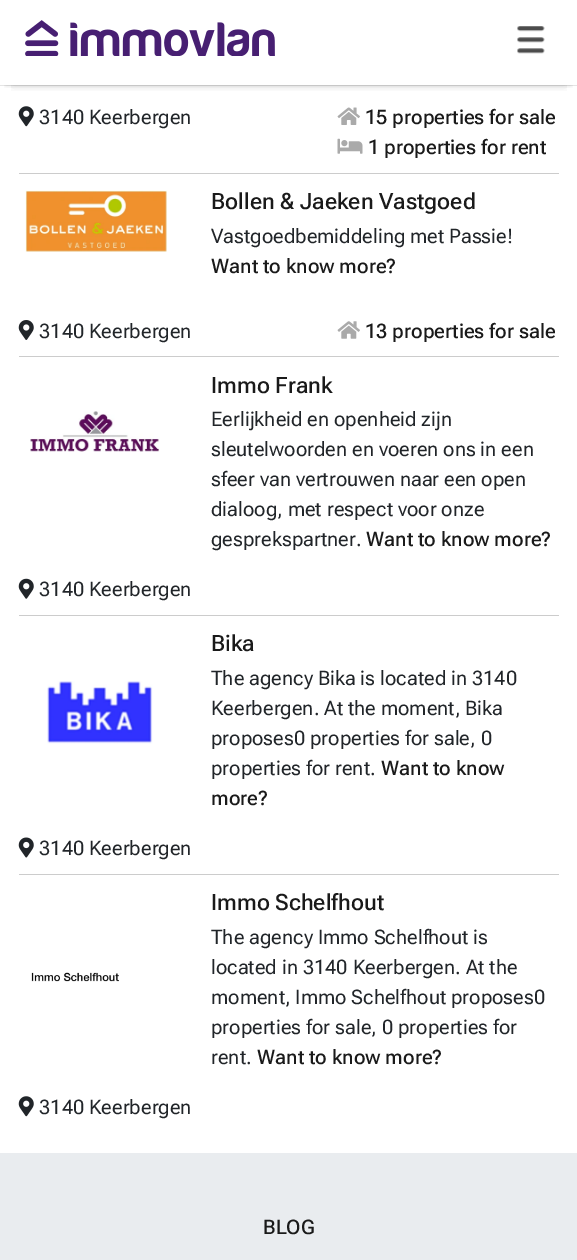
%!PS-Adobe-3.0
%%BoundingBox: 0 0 577 1260
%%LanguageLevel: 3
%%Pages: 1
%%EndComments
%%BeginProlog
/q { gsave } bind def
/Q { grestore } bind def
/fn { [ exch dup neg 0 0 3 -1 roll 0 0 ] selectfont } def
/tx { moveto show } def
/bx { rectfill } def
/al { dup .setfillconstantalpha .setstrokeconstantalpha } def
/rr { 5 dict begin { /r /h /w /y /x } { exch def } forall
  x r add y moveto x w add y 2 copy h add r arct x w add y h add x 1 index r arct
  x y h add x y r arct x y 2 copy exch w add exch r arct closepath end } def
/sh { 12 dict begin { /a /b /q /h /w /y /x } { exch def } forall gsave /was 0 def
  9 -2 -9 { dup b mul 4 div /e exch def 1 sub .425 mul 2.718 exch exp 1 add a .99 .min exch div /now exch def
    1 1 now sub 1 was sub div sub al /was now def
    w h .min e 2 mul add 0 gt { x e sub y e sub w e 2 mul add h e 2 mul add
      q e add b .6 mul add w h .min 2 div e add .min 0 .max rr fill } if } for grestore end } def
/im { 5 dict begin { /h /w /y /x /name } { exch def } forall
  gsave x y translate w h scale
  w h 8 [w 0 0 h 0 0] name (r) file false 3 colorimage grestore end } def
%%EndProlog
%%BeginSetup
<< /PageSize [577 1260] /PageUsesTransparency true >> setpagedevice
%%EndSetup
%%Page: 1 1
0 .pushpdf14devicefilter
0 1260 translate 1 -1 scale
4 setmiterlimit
1 setgray
0 0 577 1260 bx
0.898 setgray
0 85 577 1 bx
q
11 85 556 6 rectclip
0 setgray
13 25 552 60 0 6 0.12 sh
Q
q
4 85 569 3 rectclip
0 setgray
6 13 565 72 0 3 0.16 sh
Q
(image0.raw) 25 20 250 36 im
(image1.raw) 517 26 28 28 im
0.8 setgray
19 173 540 1 bx
(image2.raw) 18 106 16 21 im
/RobotoFlex-Regular 20 fn
0.129 0.145 0.161 setrgbcolor
(3140 Keerbergen) 39 124 tx
(image3.raw) 337 107 23 18 im
/RobotoFlex-Medium 20 fn
0.102 setgray
(15 properties for sale) 365 124 tx
(image4.raw) 337 138 26 16 im
(1 properties for rent) 368 154 tx
0.8 setgray
19 356 540 1 bx
(image5.raw) 25 190 142 62 im
/RobotoFlex-Medium 22.5 fn
0.102 setgray
(Bollen & Jaeken Vastgoed) 211 209 tx
/RobotoFlex-Regular 20 fn
0.129 0.145 0.161 setrgbcolor
(Vastgoedbemiddeling met Passie!) 211 243 tx
/RobotoFlex-Medium 20 fn
0.102 setgray
(Want to know more?) 211 273 tx
(image6.raw) 18 320 16 20 im
/RobotoFlex-Regular 20 fn
0.129 0.145 0.161 setrgbcolor
(3140 Keerbergen) 39 338 tx
(image7.raw) 337 321 23 18 im
/RobotoFlex-Medium 20 fn
0.102 setgray
(13 properties for sale) 365 338 tx
0.8 setgray
19 615 540 1 bx
(image8.raw) 30 411 130 41 im
/RobotoFlex-Medium 22.5 fn
0.102 setgray
(Immo Frank) 211 393 tx
/RobotoFlex-Regular 20 fn
0.129 0.145 0.161 setrgbcolor
(Eerlijkheid en openheid zijn) 211 426 tx
(sleutelwoorden en voeren ons in een) 211 456 tx
(sfeer van vertrouwen naar een open) 211 486 tx
(dialoog, met respect voor onze) 211 516 tx
(gesprekspartner.) 211 546 tx
/RobotoFlex-Medium 20 fn
0.102 setgray
(Want to know more?) 366 546 tx
(image9.raw) 18 578 16 21 im
/RobotoFlex-Regular 20 fn
0.129 0.145 0.161 setrgbcolor
(3140 Keerbergen) 39 596 tx
0.8 setgray
19 874 540 1 bx
(image10.raw) 47 681 106 63 im
/RobotoFlex-Medium 22.5 fn
0.102 setgray
(Bika) 211 651 tx
/RobotoFlex-Regular 20 fn
0.129 0.145 0.161 setrgbcolor
(The agency Bika is located in 3140) 211 685 tx
(Keerbergen. At the moment, Bika) 211 715 tx
(proposes0 properties for sale, 0) 211 745 tx
(properties for rent.) 211 775 tx
/RobotoFlex-Medium 20 fn
0.102 setgray
(Want to know) 381 775 tx
(more?) 211 805 tx
(image11.raw) 18 837 16 21 im
/RobotoFlex-Regular 20 fn
0.129 0.145 0.161 setrgbcolor
(3140 Keerbergen) 39 855 tx
(image12.raw) 31 972 88 10 im
/RobotoFlex-Medium 22.5 fn
0.102 setgray
(Immo Schelfhout) 211 910 tx
/RobotoFlex-Regular 20 fn
0.129 0.145 0.161 setrgbcolor
(The agency Immo Schelfhout is) 211 944 tx
(located in 3140 Keerbergen. At the) 211 974 tx
(moment, Immo Schelfhout proposes0) 211 1004 tx
(properties for sale, 0 properties for) 211 1034 tx
(rent.) 211 1064 tx
/RobotoFlex-Medium 20 fn
0.102 setgray
(Want to know more?) 257 1064 tx
(image2.raw) 18 1096 16 21 im
/RobotoFlex-Regular 20 fn
0.129 0.145 0.161 setrgbcolor
(3140 Keerbergen) 39 1114 tx
0.914 0.925 0.937 setrgbcolor
0 1153 577 107 bx
/RobotoFlex-Medium 20 fn
0.102 setgray
(BLOG) 263 1234 tx
.poppdf14devicefilter showpage
%%EOF
